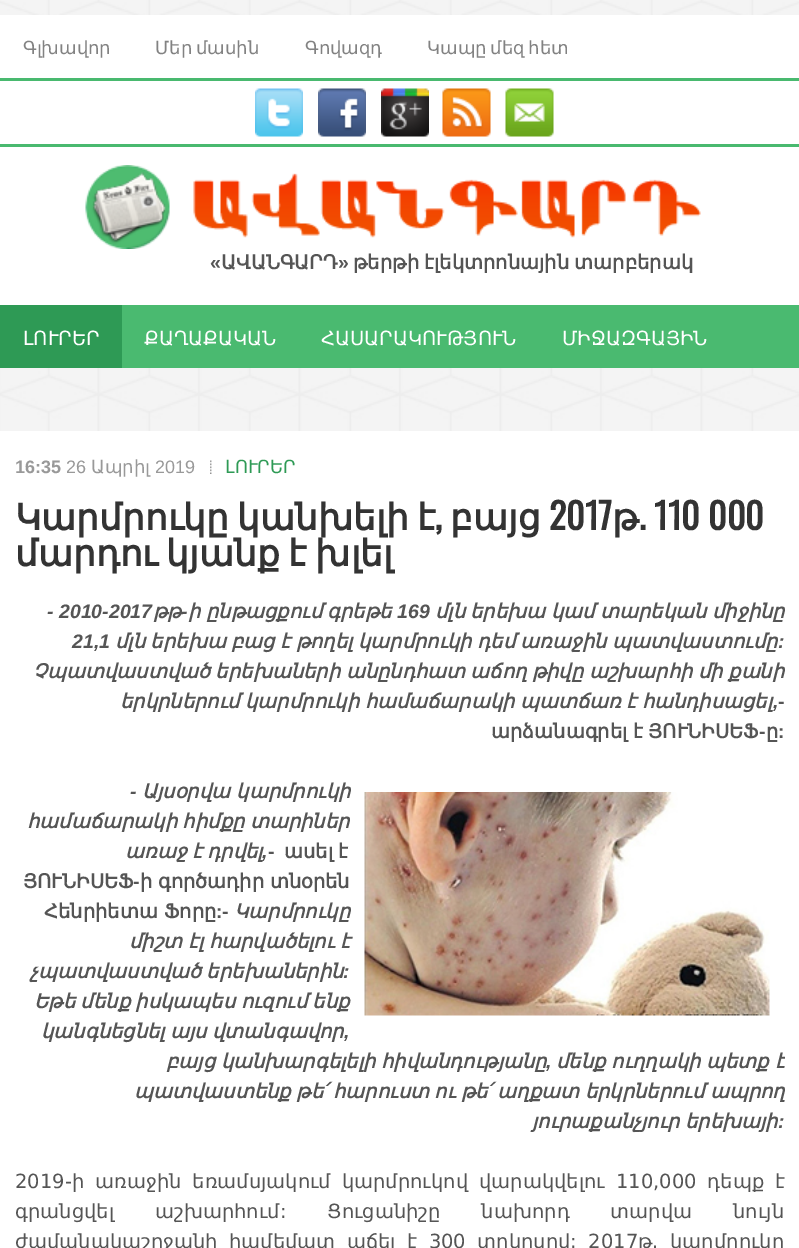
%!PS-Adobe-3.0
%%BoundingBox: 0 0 799 1248
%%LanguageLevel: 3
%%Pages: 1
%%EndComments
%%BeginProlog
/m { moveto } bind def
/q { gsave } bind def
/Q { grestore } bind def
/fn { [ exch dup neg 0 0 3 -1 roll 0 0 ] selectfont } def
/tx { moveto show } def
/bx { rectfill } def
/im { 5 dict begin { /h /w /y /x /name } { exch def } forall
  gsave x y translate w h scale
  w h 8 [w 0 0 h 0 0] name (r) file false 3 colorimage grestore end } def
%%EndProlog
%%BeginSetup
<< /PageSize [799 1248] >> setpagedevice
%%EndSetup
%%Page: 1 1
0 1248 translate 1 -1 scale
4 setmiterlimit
1 setgray
0 0 799 1248 bx
(image0.raw) 0 0 799 431 im
0 15 799 63 bx
0.286 0.725 0.435 setrgbcolor
0 78 799 3 bx
/DejaVuSans-Regular 18 fn
0.51 setgray
(Գլխավոր) 23 54 tx
155 54 m -2 0 32 (Մեր մասին) widthshow
(Գովազդ) 305 54 tx
427 54 m -2 0 32 (Կապը մեզ հետ) widthshow
1 setgray
0 81 799 63 bx
0.286 0.725 0.435 setrgbcolor
0 144 799 3 bx
(image1.raw) 255 88 48 49 im
(image2.raw) 318 88 48 49 im
(image3.raw) 381 88 48 49 im
(image4.raw) 442 88 49 49 im
(image5.raw) 505 88 49 49 im
1 setgray
0 147 799 158 bx
(image6.raw) 85 165 616 84 im
/LiberationSans-Bold 19.5 fn
0.333 setgray
(«) 210 269 tx
/DejaVuSans-Bold 19.5 fn
(ԱՎԱՆԳԱՐԴ) 221 269 tx
/LiberationSans-Bold 19.5 fn
(») 338 269 tx
/DejaVuSans-Bold 19.5 fn
353 269 m -1 0 32 (թերթի էլեկտրոնային տարբերակ) widthshow
0.29 0.729 0.439 setrgbcolor
122 305 677 63 bx
0.18 0.604 0.333 setrgbcolor
0 305 122 63 bx
/DejaVuSans-Regular 19.5 fn
1 setgray
(ԼՈՒՐԵՐ) 23 345 tx
(ՔԱՂԱՔԱԿԱՆ) 144 345 tx
(ՀԱՍԱՐԱԿՈՒԹՅՈՒՆ) 321 345 tx
(ՄԻՋԱԶԳԱՅԻՆ) 562 345 tx
/LiberationSans-Bold 18 fn
0.6 setgray
(16:35) 15 473 tx
/LiberationSans-Regular 18 fn
(26) 66 473 tx
/DejaVuSans-Regular 18 fn
(Ապրիլ) 91 473 tx
/LiberationSans-Regular 18 fn
(2019) 155 473 tx
(image7.raw) 210 460 2 14 im
/DejaVuSans-Regular 18 fn
0.18 0.604 0.333 setrgbcolor
(ԼՈՒՐԵՐ) 225 473 tx
/DejaVuSans-Bold 36 fn
0.2 setgray
(Կարմրուկը) 15 530 tx
(կանխելի) 237 530 tx
(է) 417 530 tx
/Oswald-Bold 36 fn
(,) 435 530 tx
/DejaVuSans-Bold 36 fn
(բայց) 450 530 tx
/Oswald-Bold 36 fn
(2017) 549 530 tx
/DejaVuSans-Bold 36 fn
(թ) 612 530 tx
/Oswald-Bold 36 fn
(. 110 000) 639 530 tx
/DejaVuSans-Bold 36 fn
15 566 m -3 0 32 (մարդու կյանք է խլել) widthshow
/LiberationSans-BoldItalic 19.5 fn
0.333 setgray
(- 2010-2017) 47 618 tx
/DejaVuSans-BoldItalic 19.5 fn
(թթ ի) 153 618 tx
(ընթացքում) 206 618 tx
(գրեթե) 327 618 tx
/LiberationSans-BoldItalic 19.5 fn
(169) 397 618 tx
/DejaVuSans-BoldItalic 19.5 fn
(մլն) 435 618 tx
(երեխա) 470 618 tx
(կամ) 551 618 tx
(տարեկան) 600 618 tx
(միջինը) 712 618 tx
/LiberationSans-BoldItalic 19.5 fn
(-) 181 618 tx
(21,1) 72 648 tx
/DejaVuSans-BoldItalic 19.5 fn
115 648 m -0.75 0 32 (մլն երեխա բաց է թողել կարմրուկի դեմ առաջին պատվաստումը) widthshow
/LiberationSans-BoldItalic 19.5 fn
(:) 778 648 tx
/DejaVuSans-BoldItalic 19.5 fn
33 678 m -0.75 0 32 (Չպատվաստված երեխաների անընդհատ աճող թիվը աշխարհի մի քանի) widthshow
120 708 m -0.75 0 32 (երկրներում կարմրուկի համաճարակի պատճառ է հանդիսացել) widthshow
/LiberationSans-Bold 19.5 fn
(-) 778 708 tx
/LiberationSans-BoldItalic 19.5 fn
(,) 773 708 tx
/DejaVuSans-Bold 19.5 fn
491 738 m -0.75 0 32 (արձանագրել է ՅՈՒՆԻՍԵՖ) widthshow
/LiberationSans-Bold 19.5 fn
(-) 759 738 tx
/DejaVuSans-Bold 19.5 fn
(ը) 766 738 tx
/LiberationSans-Bold 19.5 fn
(:) 778 738 tx
/LiberationSans-BoldItalic 19.5 fn
(-) 130 798 tx
/DejaVuSans-BoldItalic 19.5 fn
(Այսօրվա կարմրուկի) 142 798 tx
(image8.raw) 364 792 406 224 im
27 828 m -0.75 0 32 (համաճարակի հիմքը տարիներ) widthshow
125 858 m -0.75 0 32 (առաջ է դրվել) widthshow
/LiberationSans-BoldItalic 19.5 fn
(,) 262 858 tx
/LiberationSans-Bold 19.5 fn
(-) 268 858 tx
/DejaVuSans-Bold 19.5 fn
284 858 m -1 0 32 (ասել է) widthshow
(ՅՈՒՆԻՍԵՖ) 23 888 tx
/LiberationSans-Bold 19.5 fn
(-) 133 888 tx
/DejaVuSans-Bold 19.5 fn
140 888 m -0.75 0 32 (ի գործադիր տնօրեն) widthshow
(Հենրիետա Ֆորը) 44 918 tx
/LiberationSans-Bold 19.5 fn
(:-) 216 918 tx
/DejaVuSans-BoldItalic 19.5 fn
(Կարմրուկը) 234 918 tx
129 948 m -0.75 0 32 (միշտ էլ հարվածելու է) widthshow
30 978 m -0.75 0 32 (չպատվաստված երեխաներին) widthshow
/LiberationSans-BoldItalic 19.5 fn
(:) 343 978 tx
/DejaVuSans-BoldItalic 19.5 fn
34 1008 m -0.75 0 32 (Եթե մենք իսկապես ուզում ենք) widthshow
41 1038 m -0.75 0 32 (կանգնեցնել այս վտանգավոր) widthshow
/LiberationSans-BoldItalic 19.5 fn
(,) 344 1038 tx
/DejaVuSans-BoldItalic 19.5 fn
166 1068 m -0.5 0 32 (բայց կանխարգելելի հիվանդությանը) widthshow
/LiberationSans-BoldItalic 19.5 fn
(,) 546 1068 tx
q
15 453 770 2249 rectclip
/DejaVuSans-BoldItalic 19.5 fn
556 1068 m -0.5 0 32 (մենք ուղղակի պետք է) widthshow
Q
/DejaVuSans-BoldItalic 19.5 fn
134 1098 m -0.75 0 32 (պատվաստենք թե՛ հարուստ ու թե՛ աղքատ երկրներում ապրող) widthshow
532 1128 m -0.75 0 32 (յուրաքանչյուր երեխայի) widthshow
/LiberationSans-BoldItalic 19.5 fn
(:) 778 1128 tx
/DejaVuSans-Regular 19.5 fn
15 1188 m 4.75 0 32 (2019-ի առաջին եռամսյակում կարմրուկով վարակվելու 110,000 դեպք է) widthshow
15 1218 m 34.75 0 32 (գրանցվել աշխարհում: Ցուցանիշը նախորդ տարվա նույն) widthshow
15 1248 m 5.25 0 32 (ժամանակաշրջանի համեմատ աճել է 300 տոկոսով: 2017թ. կարմրուկը) widthshow
showpage
%%EOF
